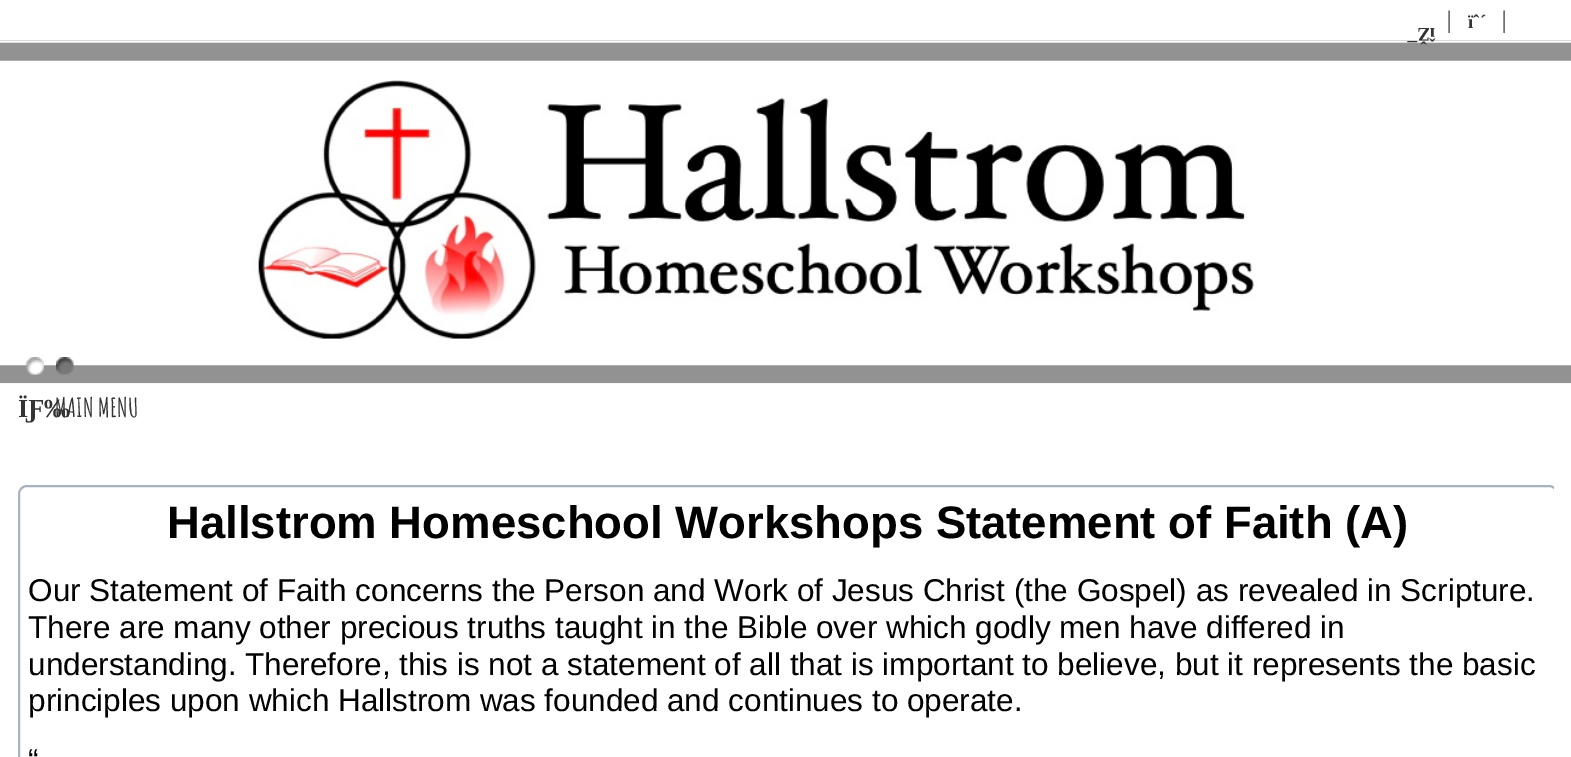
%!PS-Adobe-3.0
%%BoundingBox: 0 0 1571 757
%%LanguageLevel: 3
%%Pages: 1
%%EndComments
%%BeginProlog
/m { moveto } bind def
/S { stroke } bind def
/q { gsave } bind def
/Q { grestore } bind def
/w { setlinewidth } bind def
/fn { [ exch dup neg 0 0 3 -1 roll 0 0 ] selectfont } def
/tx { moveto show } def
/bx { rectfill } def
/rr { 5 dict begin { /r /h /w /y /x } { exch def } forall
  x r add y moveto x w add y 2 copy h add r arct x w add y h add x 1 index r arct
  x y h add x y r arct x y 2 copy exch w add exch r arct closepath end } def
/im { 5 dict begin { /h /w /y /x /name } { exch def } forall
  gsave x y translate w h scale
  w h 8 [w 0 0 h 0 0] name (r) file false 3 colorimage grestore end } def
%%EndProlog
%%BeginSetup
<< /PageSize [1571 757] >> setpagedevice
%%EndSetup
%%Page: 1 1
0 757 translate 1 -1 scale
4 setmiterlimit
0.604 0.651 0.698 setrgbcolor
0 0 1571 757 bx
1 setgray
0 0 1571 40 bx
/LiberationSans-Regular 24 fn
0.439 setgray
(|) 1446 28 tx
/LiberationSerif-Bold 19 fn
0.2 setgray
(ïˆ´) 1468 28 tx
/LiberationSans-Regular 24 fn
0.439 setgray
(|) 1501 28 tx
1 setgray
0 383 1571 374 bx
(image0.raw) 0 40 1571 344 im
/LiberationSerif-Bold 19 fn
0.2 setgray
q 1435 28 translate 180 rotate 0 0 m (îŽ¯) show Q
(image1.raw) 26 357 18 18 im
(image2.raw) 56 357 18 18 im
/LiberationSerif-Bold 26 fn
(ÏƑ‰) 18 417 tx
/AmaticSC-Bold 26 fn
(MAIN MENU) 55 417 tx
q
18 485 1536 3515 rectclip
0.663 0.706 0.745 setrgbcolor
2 w
19 486 1538 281 8 rr S
Q
/LiberationSans-Bold 45.5 fn
0 setgray
(Hallstrom Homeschool Workshops Statement of Faith \(A\)) 167 538 tx
/LiberationSans-Regular 31.5 fn
(Our Statement of Faith concerns the Person and Work of Jesus Christ \(the Gospel\) as revealed in Scripture.) 28 601 tx
(There are many other precious truths taught in the Bible over which godly men have differed in) 28 638 tx
(understanding. Therefore, this is not a statement of all that is important to believe, but it represents the basic) 28 675 tx
(principles upon which Hallstrom was founded and continues to operate.) 28 711 tx
(“) 28 771 tx
showpage
%%EOF
